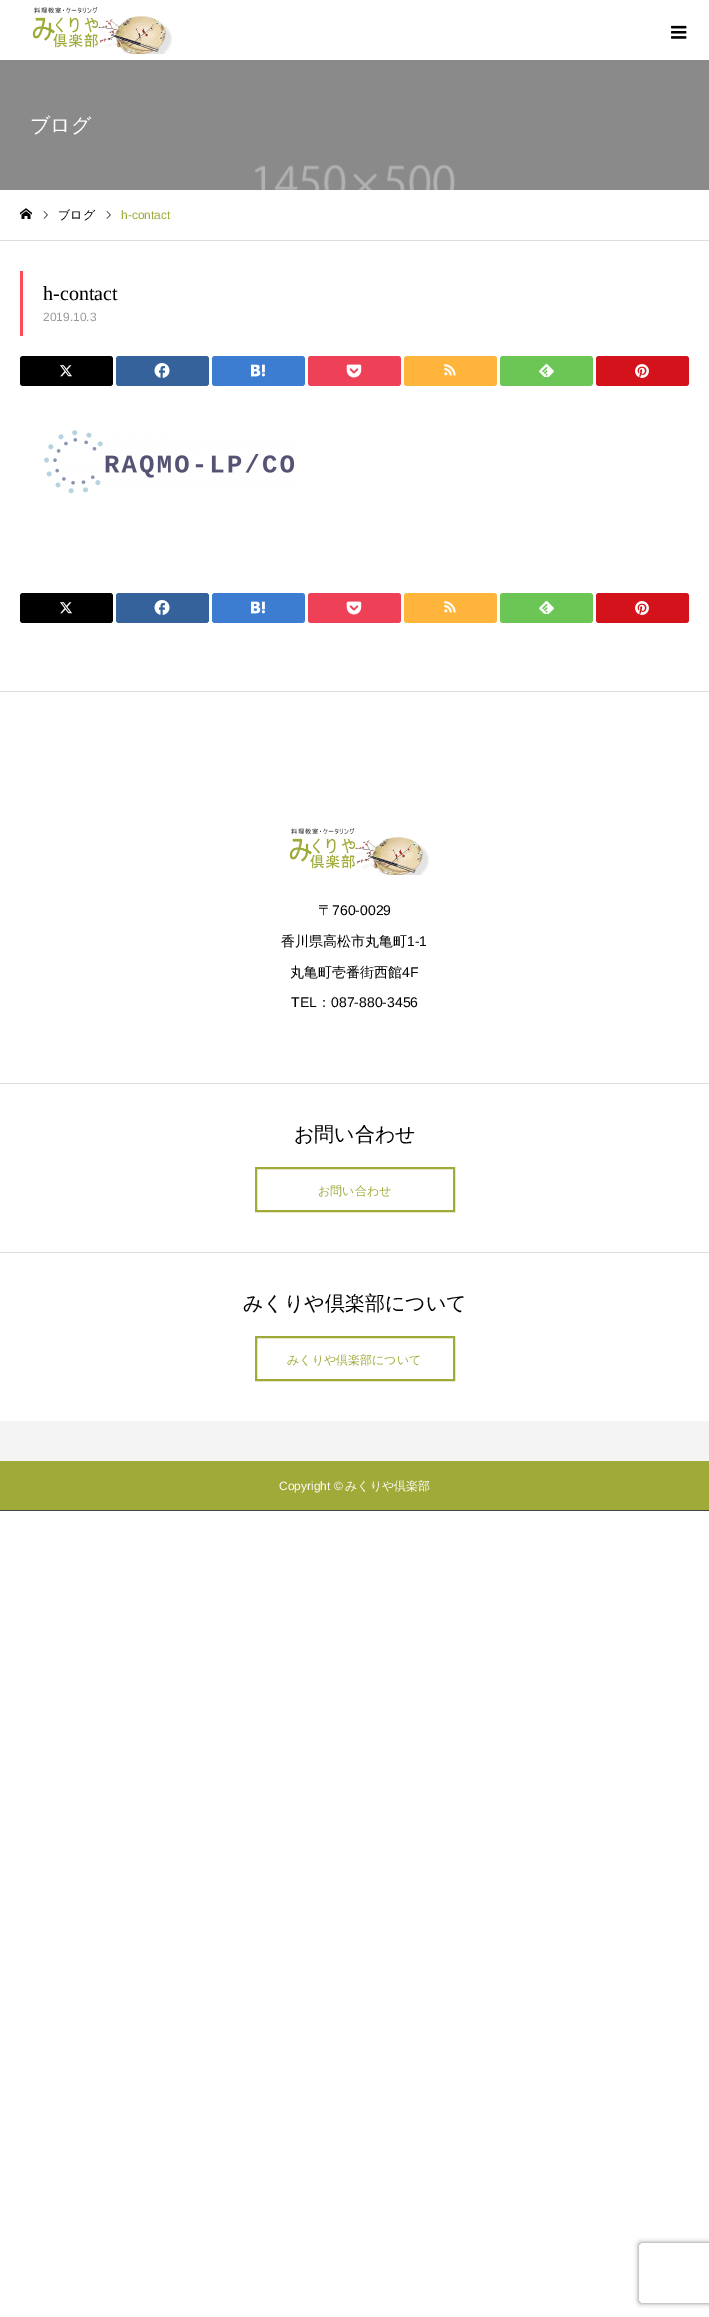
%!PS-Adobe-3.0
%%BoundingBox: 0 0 709 2317
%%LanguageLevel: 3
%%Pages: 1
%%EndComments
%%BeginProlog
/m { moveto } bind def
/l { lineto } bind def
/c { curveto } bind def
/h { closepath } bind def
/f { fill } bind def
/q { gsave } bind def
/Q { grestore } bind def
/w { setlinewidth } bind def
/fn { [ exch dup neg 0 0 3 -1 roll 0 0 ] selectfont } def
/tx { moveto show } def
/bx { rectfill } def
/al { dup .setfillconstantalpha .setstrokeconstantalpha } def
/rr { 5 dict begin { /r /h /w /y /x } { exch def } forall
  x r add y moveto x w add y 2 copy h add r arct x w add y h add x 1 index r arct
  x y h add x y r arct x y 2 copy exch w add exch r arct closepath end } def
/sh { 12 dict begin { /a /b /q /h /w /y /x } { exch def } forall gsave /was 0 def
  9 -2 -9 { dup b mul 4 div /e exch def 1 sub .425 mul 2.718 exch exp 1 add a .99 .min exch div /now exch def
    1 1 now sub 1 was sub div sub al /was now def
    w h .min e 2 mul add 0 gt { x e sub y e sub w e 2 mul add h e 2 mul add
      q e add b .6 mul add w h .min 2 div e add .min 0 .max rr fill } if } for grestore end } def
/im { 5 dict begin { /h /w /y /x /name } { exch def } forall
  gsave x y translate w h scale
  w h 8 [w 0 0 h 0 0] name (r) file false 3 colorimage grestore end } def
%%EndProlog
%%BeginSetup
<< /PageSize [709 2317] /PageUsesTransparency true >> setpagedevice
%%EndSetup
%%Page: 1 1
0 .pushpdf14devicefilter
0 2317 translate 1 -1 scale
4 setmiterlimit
1 setgray
0 0 709 2317 bx
(image0.raw) 32 7 140 47 im
(image1.raw) 671 25 16 14 im
(image2.raw) 0 60 709 130 im
/WenQuanYiZenHei-Medium 20 fn
(ブログ) 30 132 tx
0.867 setgray
0 240 709 1 bx
(image3.raw) 20 208 12 11 im
(image4.raw) 43 211 5 8 im
/WenQuanYiZenHei-Medium 12 fn
0 setgray
(ブログ) 58 219 tx
(image4.raw) 106 211 5 8 im
/LiberationSans-Regular 12 fn
0.627 0.667 0.224 setrgbcolor
(h-contact) 121 219 tx
1 0.294 0.329 setrgbcolor
20 271 3 65 bx
/LiberationSerif-Regular 20 fn
0 setgray
(h-contact) 43 300 tx
/LiberationSans-Regular 12 fn
0.6 setgray
(2019.10.3) 43 321 tx
0 setgray
20 356 93 30 3 rr f
(image5.raw) 60 365 12 12 im
0.208 0.384 0.604 setrgbcolor
116 356 93 30 3 rr f
(image6.raw) 154 363 16 15 im
0.235 0.49 0.82 setrgbcolor
212 356 93 30 3 rr f
(image7.raw) 251 364 14 13 im
0.933 0.251 0.337 setrgbcolor
308 356 93 30 3 rr f
(image8.raw) 346 364 16 14 im
1 0.71 0.235 setrgbcolor
404 356 93 30 3 rr f
(image9.raw) 444 364 12 12 im
0.424 0.776 0.333 setrgbcolor
500 356 93 30 3 rr f
(image10.raw) 539 363 15 14 im
0.831 0.071 0.11 setrgbcolor
596 356 93 30 3 rr f
(image11.raw) 635 364 14 14 im
(image12.raw) 44 430 251 64 im
0 setgray
20 593 93 30 3 rr f
(image5.raw) 60 602 12 12 im
0.208 0.384 0.604 setrgbcolor
116 593 93 30 3 rr f
(image6.raw) 154 600 16 15 im
0.235 0.49 0.82 setrgbcolor
212 593 93 30 3 rr f
(image7.raw) 251 601 14 13 im
0.933 0.251 0.337 setrgbcolor
308 593 93 30 3 rr f
(image8.raw) 346 601 16 14 im
1 0.71 0.235 setrgbcolor
404 593 93 30 3 rr f
(image9.raw) 444 601 12 12 im
0.424 0.776 0.333 setrgbcolor
500 593 93 30 3 rr f
(image10.raw) 539 600 15 14 im
0.831 0.071 0.11 setrgbcolor
596 593 93 30 3 rr f
(image11.raw) 635 601 14 14 im
0.867 setgray
0 691 709 1 bx
0 1083 709 1 bx
(image0.raw) 289 828 140 47 im
/WenQuanYiZenHei-Medium 14 fn
0 setgray
(〒) 318 915 tx
/LiberationSans-Regular 14 fn
(760-0029) 332 915 tx
/WenQuanYiZenHei-Medium 14 fn
(香川県高松市丸亀町) 281 946 tx
/LiberationSans-Regular 14 fn
(1-1) 407 946 tx
/WenQuanYiZenHei-Medium 14 fn
(丸亀町壱番街西館) 290 977 tx
/LiberationSans-Regular 14 fn
(4F) 402 977 tx
(TEL) 291 1007 tx
/WenQuanYiZenHei-Medium 14 fn
(：) 317 1007 tx
/LiberationSans-Regular 14 fn
(087-880-3456) 331 1007 tx
0.867 setgray
0 1252 709 1 bx
/WenQuanYiZenHei-Medium 20 fn
0 setgray
(お問い合わせ) 294 1141 tx
0.627 0.667 0.224 setrgbcolor
2 w
256 1168 198 43 rectstroke
/WenQuanYiZenHei-Medium 12 fn
(お問い合わせ) 318 1195 tx
/WenQuanYiZenHei-Medium 20 fn
0 setgray
(みくりや倶楽部について) 243 1310 tx
0.627 0.667 0.224 setrgbcolor
256 1337 198 43 rectstroke
/WenQuanYiZenHei-Medium 12 fn
(みくりや倶楽部について) 287 1364 tx
0.957 0.957 0.961 setrgbcolor
0 1421 709 40 bx
0.627 0.667 0.224 setrgbcolor
0 1461 709 49 bx
0.267 setgray
0 1510 709 1 bx
/LiberationSans-Regular 12 fn
1 setgray
(Copyright ©) 279 1490 tx
/WenQuanYiZenHei-Medium 12 fn
(みくりや倶楽部) 345 1490 tx
q
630 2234 m 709 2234 l 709 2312 l 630 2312 l h 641 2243 m 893 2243 l 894 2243 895 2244 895 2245 c 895 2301 l 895 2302 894 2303 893 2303 c 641 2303 l 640 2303 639 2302 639 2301 c 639 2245 l 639 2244 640 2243 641 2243 c h eoclip newpath
0.502 setgray
639 2243 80 60 2 2.5 1 sh
Q
.poppdf14devicefilter showpage
%%EOF
